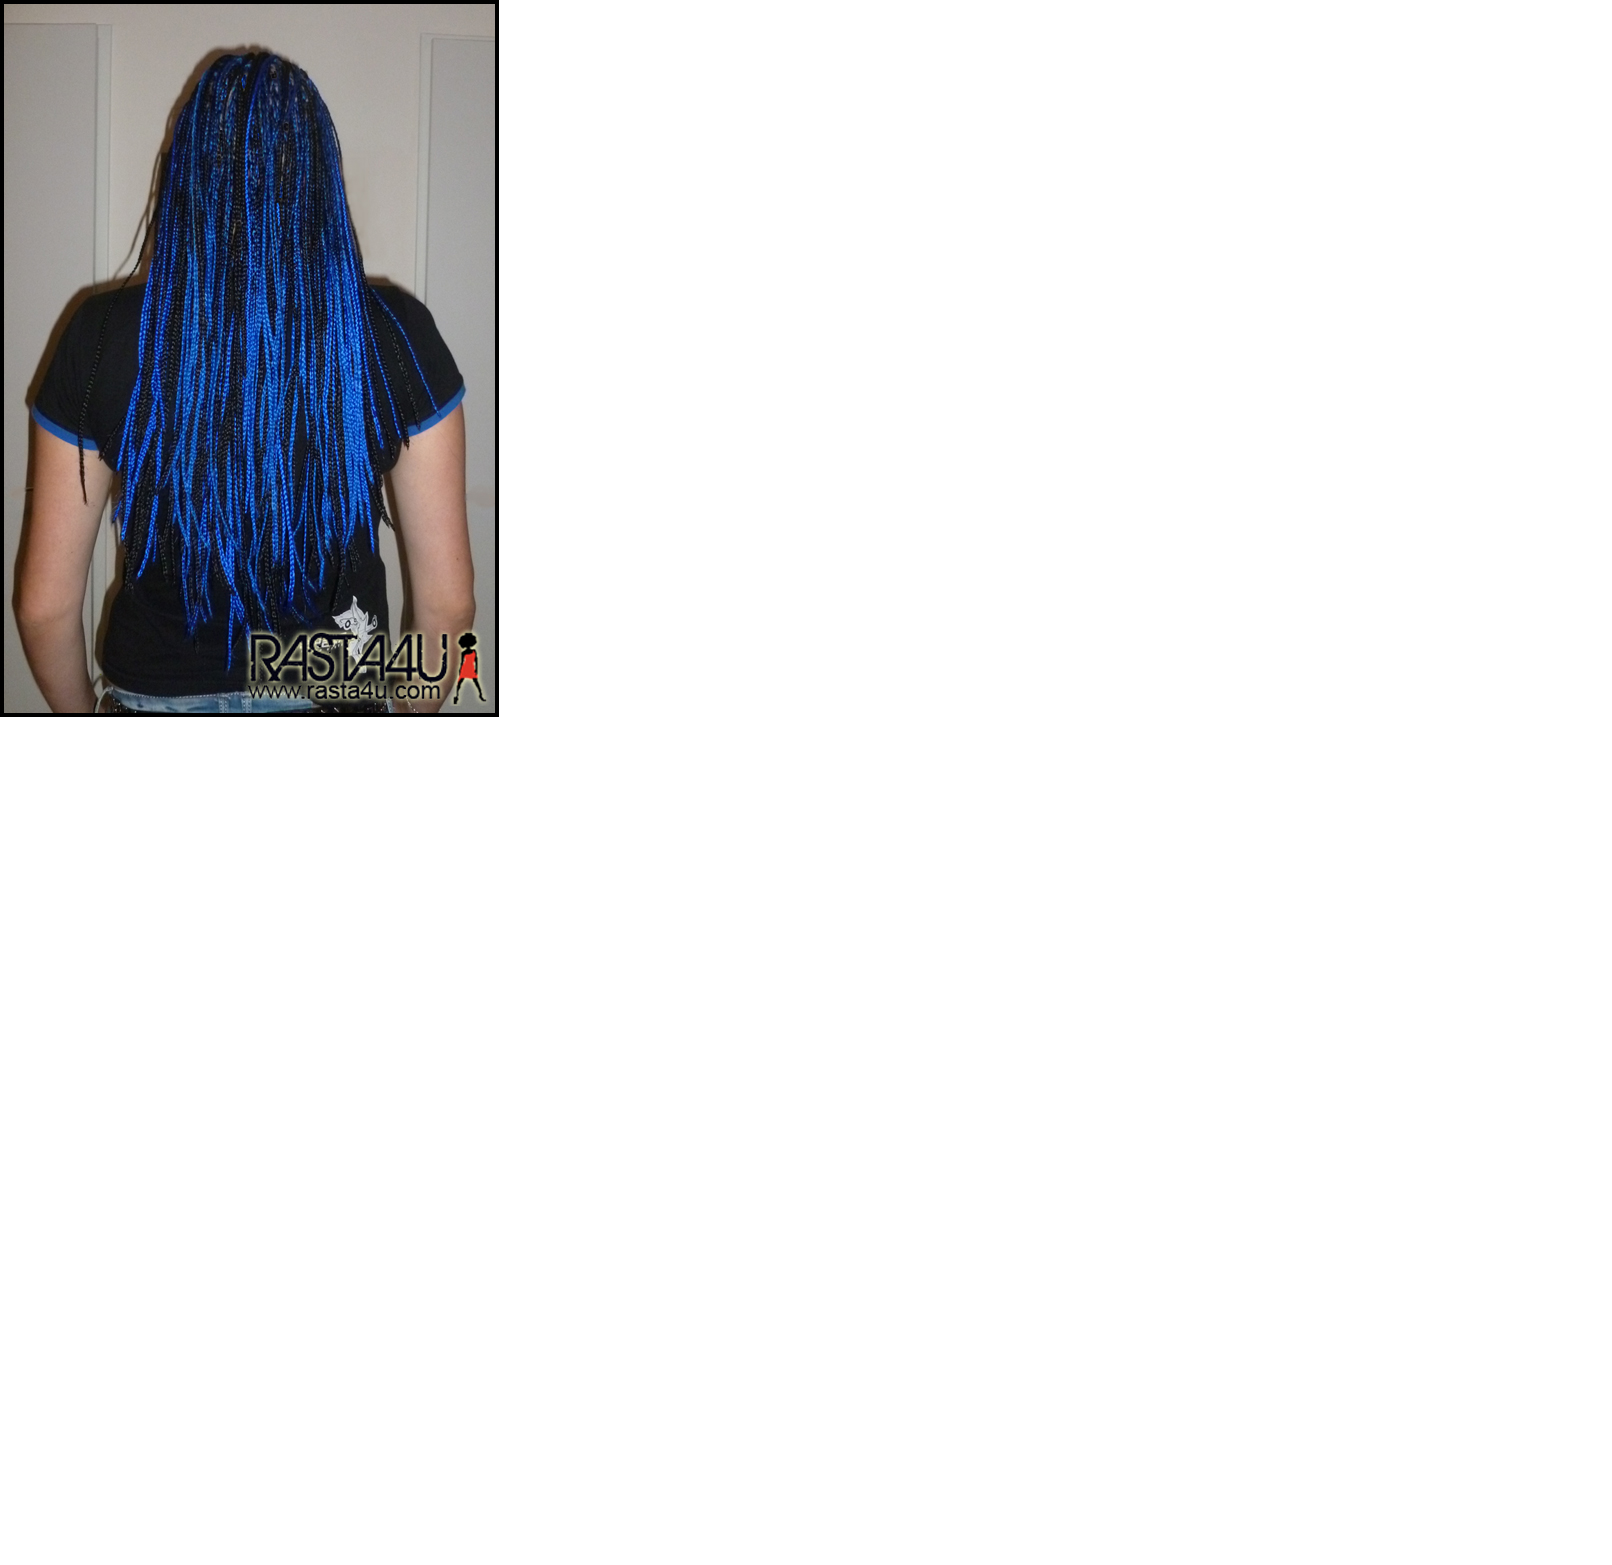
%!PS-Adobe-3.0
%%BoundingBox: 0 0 1612 1565
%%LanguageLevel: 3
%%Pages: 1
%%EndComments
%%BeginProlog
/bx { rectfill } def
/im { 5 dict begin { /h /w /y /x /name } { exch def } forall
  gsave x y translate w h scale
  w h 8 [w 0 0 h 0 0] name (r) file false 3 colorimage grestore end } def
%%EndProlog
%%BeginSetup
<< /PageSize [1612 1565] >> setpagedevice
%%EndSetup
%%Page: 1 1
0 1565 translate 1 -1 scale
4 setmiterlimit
1 setgray
0 0 1612 1565 bx
(image0.raw) 0 0 499 717 im
showpage
%%EOF
